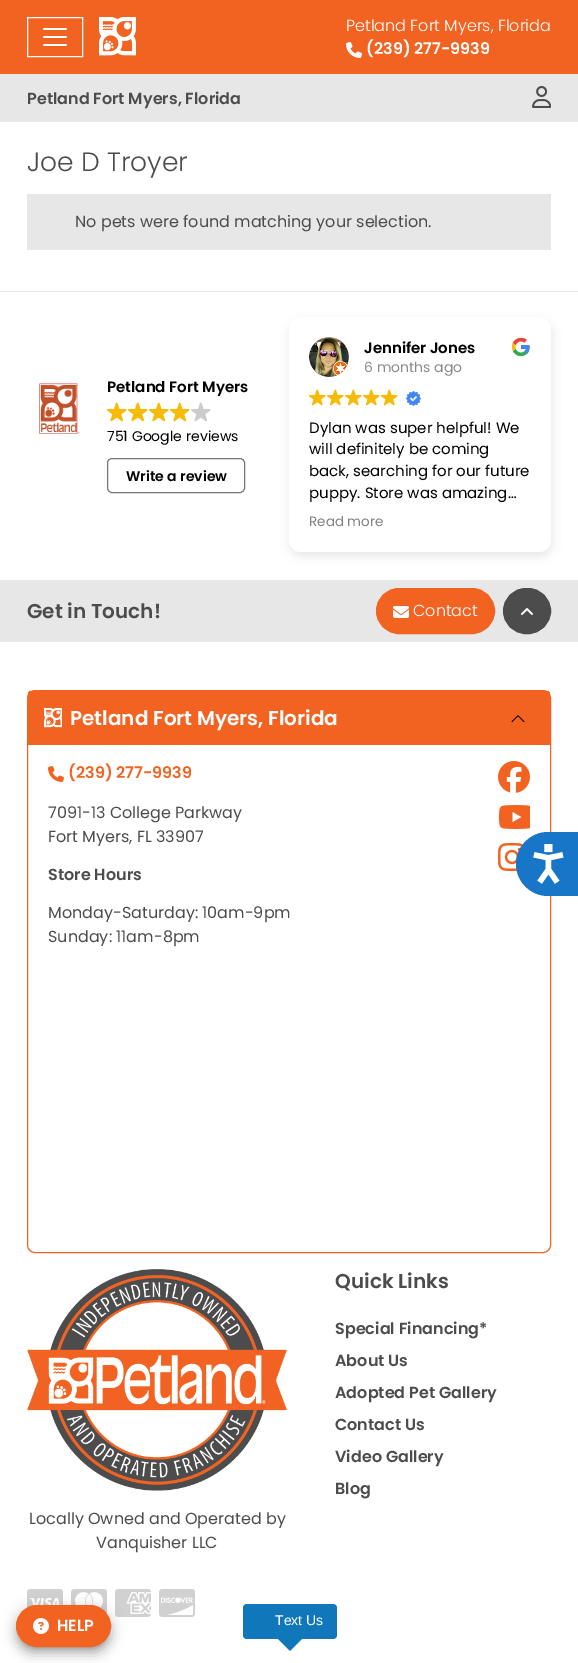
%!PS-Adobe-3.0
%%BoundingBox: 0 0 578 1663
%%LanguageLevel: 3
%%Pages: 1
%%EndComments
%%BeginProlog
/m { moveto } bind def
/l { lineto } bind def
/c { curveto } bind def
/h { closepath } bind def
/f { fill } bind def
/S { stroke } bind def
/q { gsave } bind def
/Q { grestore } bind def
/fn { [ exch dup neg 0 0 3 -1 roll 0 0 ] selectfont } def
/tx { moveto show } def
/bx { rectfill } def
/al { dup .setfillconstantalpha .setstrokeconstantalpha } def
/rr { 5 dict begin { /r /h /w /y /x } { exch def } forall
  x r add y moveto x w add y 2 copy h add r arct x w add y h add x 1 index r arct
  x y h add x y r arct x y 2 copy exch w add exch r arct closepath end } def
/sh { 12 dict begin { /a /b /q /h /w /y /x } { exch def } forall gsave /was 0 def
  9 -2 -9 { dup b mul 4 div /e exch def 1 sub .425 mul 2.718 exch exp 1 add a .99 .min exch div /now exch def
    1 1 now sub 1 was sub div sub al /was now def
    w h .min e 2 mul add 0 gt { x e sub y e sub w e 2 mul add h e 2 mul add
      q e add b .6 mul add w h .min 2 div e add .min 0 .max rr fill } if } for grestore end } def
/im { 5 dict begin { /h /w /y /x /name } { exch def } forall
  gsave x y translate w h scale
  w h 8 [w 0 0 h 0 0] name (r) file false 3 colorimage grestore end } def
%%EndProlog
%%BeginSetup
<< /PageSize [578 1663] /PageUsesTransparency true >> setpagedevice
%%EndSetup
%%Page: 1 1
0 .pushpdf14devicefilter
0 1663 translate 1 -1 scale
4 setmiterlimit
1 setgray
0 0 578 1663 bx
0.906 setgray
0 74 578 48 bx
0.949 0.388 0.133 setrgbcolor
0 0 578 74 bx
1 setgray
27.5 17.5 55 39 rectstroke
(image0.raw) 43 28 24 18 im
(image1.raw) 99 17 37 39 im
/Poppins-Light 16 fn
(Petland Fort Myers, Florida) 346 31 tx
(image2.raw) 346 42 16 16 im
/Poppins-SemiBold 16 fn
(\(239\) 277-9939) 366 54 tx
0.298 setgray
(Petland Fort Myers, Florida) 27 104 tx
(image3.raw) 532 86 19 22 im
/Poppins-Light 26.5 fn
(Joe D Troyer) 27 171 tx
0.906 setgray
27 194 524 56 bx
/Poppins-Regular 16 fn
0.298 setgray
(No pets were found matching your selection.) 75 227 tx
0.906 setgray
0 291 578 1 bx
(image4.raw) 39 383 41 51 im
/Poppins-SemiBold 15 fn
0 setgray
(Petland Fort Myers) 107 392 tx
(image5.raw) 107 402 20 20 im
(image5.raw) 128 402 20 20 im
(image5.raw) 149 402 20 20 im
(image5.raw) 170 402 20 20 im
(image6.raw) 191 402 20 20 im
/Poppins-Regular 14 fn
(751 Google reviews) 107 441 tx
0.463 setgray
107.5 458.5 137 34 4.5 rr S
/Poppins-SemiBold 14 fn
0 setgray
(Write a review) 126 481 tx
290 321 262 235 12 5 0.1 sh
1 setgray
289 317 262 235 12 rr f
(image7.raw) 309 337 40 40 im
/Poppins-SemiBold 15 fn
0 setgray
(Jennifer Jones) 364 353 tx
/Poppins-Regular 14 fn
0.541 setgray
(6 months ago) 364 372 tx
(image8.raw) 511 337 19 20 im
(image9.raw) 309 389 17 17 im
(image9.raw) 327 389 17 17 im
(image9.raw) 345 389 17 17 im
(image9.raw) 363 389 17 17 im
(image9.raw) 381 389 17 17 im
(image10.raw) 406 391 15 15 im
/Poppins-Regular 15 fn
0 setgray
(Dylan was super helpful! We) 309 433 tx
(will definitely be coming) 309 454 tx
(back, searching for our future) 309 476 tx
(puppy. Store was amazing…) 309 498 tx
/Poppins-Regular 13.5 fn
0.502 setgray
(Read more) 309 526 tx
0.906 setgray
0 580 578 62 bx
/Poppins-SemiBold 20 fn
0.298 setgray
(Get in Touch!) 27 618 tx
0.949 0.388 0.133 setrgbcolor
376.5 588.5 118 45 22.5 rr q f Q
S
(image11.raw) 393 606 16 12 im
/Poppins-Light 16 fn
1 setgray
(Contact) 413 616 tx
0.298 setgray
503.5 588.5 47 45 22.5 rr q f Q
S
(image12.raw) 521 608 12 7 im
0.949 0.388 0.133 setrgbcolor
27.5 690.5 523 562 7.5 rr S
q
27 690 524 563 8 rr clip newpath
28 691 522 54 bx
Q
(image13.raw) 44 708 18 20 im
/Poppins-SemiBold 20 fn
1 setgray
(Petland Fort Myers, Florida) 70 725 tx
(image14.raw) 511 715 14 8 im
(image15.raw) 48 766 16 16 im
/Poppins-SemiBold 16 fn
0.949 0.388 0.133 setrgbcolor
(\(239\) 277-9939) 68 778 tx
/Poppins-Regular 16 fn
0.298 setgray
(7091-13 College Parkway) 48 818 tx
(Fort Myers, FL 33907) 48 842 tx
/Poppins-SemiBold 16 fn
(Store Hours) 48 880 tx
/Poppins-Regular 16 fn
(Monday-Saturday: 10am-9pm) 48 918 tx
(Sunday: 11am-8pm) 48 942 tx
(image16.raw) 498 761 32 32 im
(image17.raw) 498 805 32 24 im
(image18.raw) 498 843 25 28 im
/Poppins-SemiBold 20 fn
(Quick Links) 335 1288 tx
/Poppins-SemiBold 16 fn
(Special Financing*) 335 1334 tx
(About Us) 335 1366 tx
(Adopted Pet Gallery) 335 1398 tx
(Contact Us) 335 1430 tx
(Video Gallery) 335 1462 tx
(Blog) 335 1494 tx
(image19.raw) 27 1269 260 222 im
/Poppins-Regular 16 fn
(Locally Owned and Operated by) 29 1524 tx
(Vanquisher LLC) 96 1548 tx
(image20.raw) 27 1589 36 19 im
(image21.raw) 71 1589 36 25 im
(image22.raw) 115 1589 36 28 im
(image23.raw) 159 1589 36 28 im
0.094 0.463 0.788 setrgbcolor
548 832 m 578 832 l 578 896 l 548 896 l 530.5 896 516 881.5 516 864 c 516 846.5 530.5 832 548 832 c h f
(image24.raw) 533 844 31 40 im
0 setgray
14 1606 99 46 23 7 0.12 sh
15 1612 97 44 22 5 0.14 sh
19 1613 89 36 18 2.5 0.2 sh
0.949 0.388 0.133 setrgbcolor
16.5 1605.5 94 41 20.5 rr q f Q
S
(image25.raw) 33 1618 16 16 im
/Poppins-SemiBold 16 fn
1 setgray
(HELP) 57 1631 tx
0.059 0.467 0.729 setrgbcolor
243 1604 94 35 4 rr f
/LiberationSans-Regular 14 fn
1 setgray
(Text Us) 275 1625 tx
0.059 0.467 0.729 setrgbcolor
278 1639 m 302 1639 l 290 1651 l h f
.poppdf14devicefilter showpage
%%EOF
